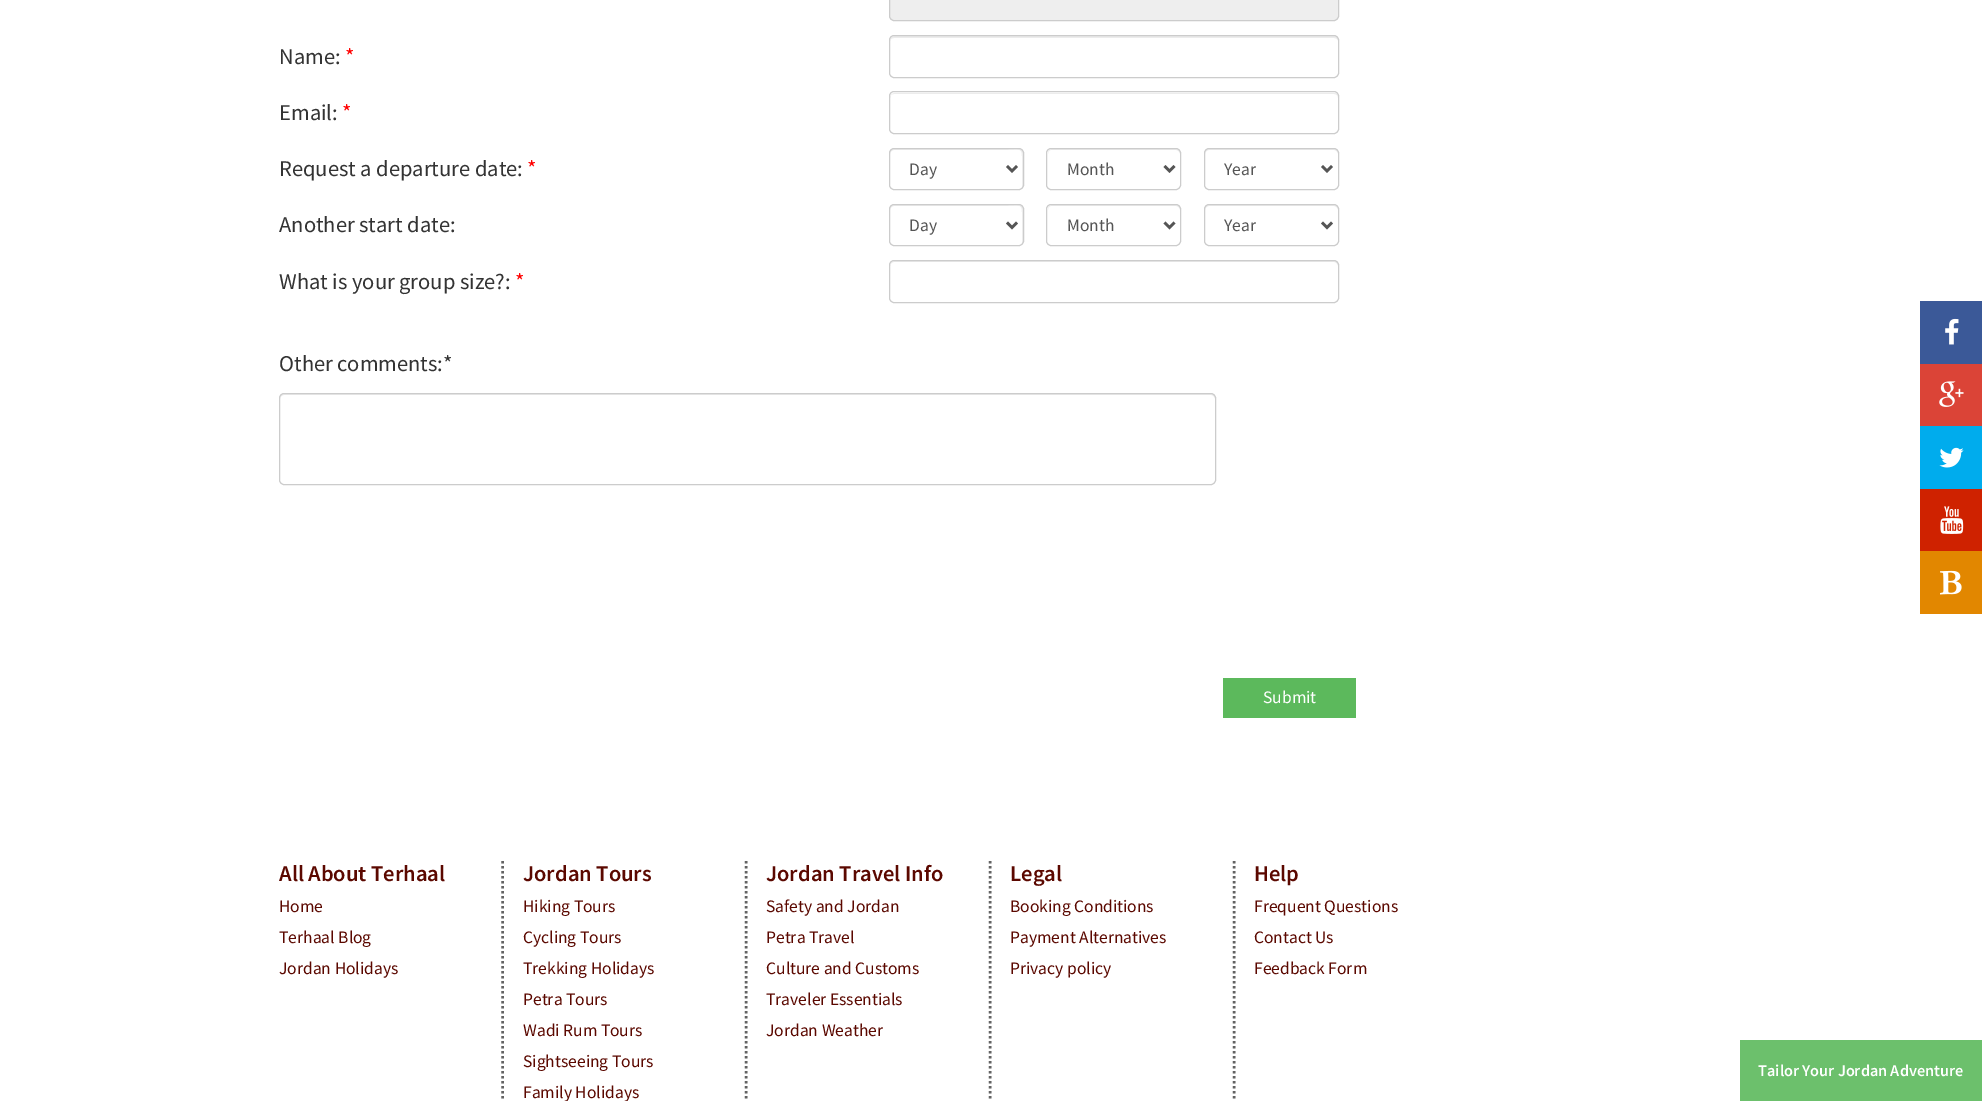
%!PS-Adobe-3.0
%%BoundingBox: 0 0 1982 1101
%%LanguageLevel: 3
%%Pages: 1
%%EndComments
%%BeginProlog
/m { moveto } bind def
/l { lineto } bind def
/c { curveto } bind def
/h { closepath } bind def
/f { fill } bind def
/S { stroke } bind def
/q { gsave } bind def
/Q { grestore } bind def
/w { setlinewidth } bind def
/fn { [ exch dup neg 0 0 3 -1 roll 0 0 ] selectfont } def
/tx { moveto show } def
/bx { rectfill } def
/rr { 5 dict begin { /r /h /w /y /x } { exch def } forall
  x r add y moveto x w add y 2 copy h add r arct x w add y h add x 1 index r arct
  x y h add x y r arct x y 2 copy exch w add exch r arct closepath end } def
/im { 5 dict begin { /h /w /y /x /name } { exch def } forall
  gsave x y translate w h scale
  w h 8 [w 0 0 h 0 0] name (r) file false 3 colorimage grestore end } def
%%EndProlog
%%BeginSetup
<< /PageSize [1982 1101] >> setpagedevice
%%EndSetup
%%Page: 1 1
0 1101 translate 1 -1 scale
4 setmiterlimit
1 setgray
0 0 1982 1101 bx
0.933 setgray
889.5 -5.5 449 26 4.5 rr q f Q
0.8 setgray
S
/SourceSansPro-Regular 22.5 fn
0.2 setgray
(Name:) 279 64 tx
1 0 0 setrgbcolor
(*) 345 64 tx
0.925 setgray
894 38 m 1334 38 l 1336 38 1338 39 1338 41 c 1338 38 1337 36 1334 36 c 894 36 l 892 37 l 891 38 l 890 41 l 890 39 892 38 894 38 c h f
0.8 setgray
889.5 35.5 449 42 4.5 rr S
0.2 setgray
(Email:) 279 120 tx
1 0 0 setrgbcolor
(*) 342 120 tx
0.925 setgray
894 94 m 1334 94 l 1336 94 1338 95 1338 98 c 1338 95 1337 93 1334 93 c 894 93 l 892 94 l 891 95 l 890 98 l 890 95 892 94 894 94 c h f
0.8 setgray
889.5 91.5 449 42 4.5 rr S
0.2 setgray
(Request a departure date:) 279 176 tx
1 0 0 setrgbcolor
(*) 527 176 tx
0.925 setgray
894 150 m 998 150 l 1024 150 1022 145 1022 165 c 1022 188 l 1022 187 1023 186 1023 185 c 1023 153 l 1023 151 1021 149 1019 149 c 894 149 l 892 149 890 151 890 153 c 890 154 l 890 152 892 150 894 150 c h f
0.8 setgray
889.5 148.5 134 41 4.5 rr S
0.333 setgray
2.5 w
1007 166 m 1012 171 l 1017 166 l S
/SourceSansPro-Regular 17.5 fn
(Day) 909 175 tx
0.925 setgray
1051 150 m 1176 150 l 1178 150 1180 152 1180 154 c 1180 153 l 1180 151 1178 149 1176 149 c 1052 149 l 1050 149 1048 151 1048 153 c 1048 154 l 1048 152 1049 150 1051 150 c h f
0.8 setgray
1 w
1046.5 148.5 134 41 4.5 rr S
0.333 setgray
2.5 w
1164.5 166 m 1169.5 171 l 1174.5 166 l S
(Month) 1067 175 tx
0.925 setgray
1209 150 m 1334 150 l 1336 150 1338 152 1338 154 c 1338 153 l 1338 151 1336 149 1334 149 c 1209 149 l 1207 149 1205 151 1205 153 c 1205 154 l 1205 152 1207 150 1209 150 c h f
0.8 setgray
1 w
1204.5 148.5 134 41 4.5 rr S
0.333 setgray
2.5 w
1322 166 m 1327 171 l 1332 166 l S
(Year) 1224 175 tx
/SourceSansPro-Regular 22.5 fn
0.2 setgray
(Another start date:) 279 232 tx
0.925 setgray
894 206 m 998 206 l 1024 206 1022 201 1022 221 c 1022 244 l 1023 243 1023 242 1023 241 c 1023 209 l 1023 207 1021 205 1019 205 c 894 205 l 892 205 890 207 890 209 c 890 210 l 890 208 892 206 894 206 c h f
0.8 setgray
1 w
889.5 204.5 134 41 4.5 rr S
0.333 setgray
2.5 w
1007 222.5 m 1012 227.5 l 1017 222.5 l S
/SourceSansPro-Regular 17.5 fn
(Day) 909 231 tx
0.925 setgray
1051 206 m 1176 206 l 1178 206 1180 208 1180 210 c 1180 209 l 1180 207 1178 205 1176 205 c 1052 205 l 1050 205 1048 207 1048 209 c 1048 210 l 1048 208 1049 206 1051 206 c h f
0.8 setgray
1 w
1046.5 204.5 134 41 4.5 rr S
0.333 setgray
2.5 w
1164.5 222.5 m 1169.5 227.5 l 1174.5 222.5 l S
(Month) 1067 231 tx
0.925 setgray
1209 206 m 1334 206 l 1336 206 1338 208 1338 210 c 1338 209 l 1338 207 1336 205 1334 205 c 1209 205 l 1207 205 1205 207 1205 209 c 1205 210 l 1205 208 1207 206 1209 206 c h f
0.8 setgray
1 w
1204.5 204.5 134 41 4.5 rr S
0.333 setgray
2.5 w
1322 222.5 m 1327 227.5 l 1332 222.5 l S
(Year) 1224 231 tx
/SourceSansPro-Regular 22.5 fn
0.2 setgray
(What is your group size?:) 279 289 tx
1 0 0 setrgbcolor
(*) 515 289 tx
0.925 setgray
894 262 m 1334 262 l 1336 262 1338 264 1338 266 c 1338 263 1337 261 1334 261 c 894 261 l 892 262 l 891 263 l 890 266 l 890 264 892 262 894 262 c h f
0.8 setgray
1 w
889.5 260.5 449 42 4.5 rr S
0.2 setgray
(Other comments:*) 279 371 tx
0.925 setgray
284 395 m 1211 395 l 1213 395 1215 397 1215 399 c 1215 396 1214 394 1211 394 c 284 394 l 281 394 280 396 280 399 c 280 397 282 395 284 395 c h f
0.8 setgray
279.5 393.5 936 91 4.5 rr S
0.361 0.725 0.361 setrgbcolor
1223 678 133 40 bx
/SourceSansPro-Regular 17.5 fn
1 setgray
(Submit) 1263 703 tx
0.231 0.349 0.596 setrgbcolor
1920 301 62 63 bx
(image0.raw) 1945 318 14 27 im
0.859 0.267 0.216 setrgbcolor
1920 364 62 62 bx
(image1.raw) 1939 381 25 26 im
0 0.675 0.929 setrgbcolor
1920 426 62 63 bx
(image2.raw) 1939 447 25 21 im
0.812 0.133 0 setrgbcolor
1920 489 62 62 bx
(image3.raw) 1940 506 24 28 im
0.886 0.529 0 setrgbcolor
1920 551 62 63 bx
(image4.raw) 1940 570 22 25 im
0.388 setgray
2.5 w
[2.5 2.5] 0 setdash
502.5 861 m 502.5 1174 l S
/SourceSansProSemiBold-SemiBold 22.5 fn
0.357 0.031 0 setrgbcolor
(All About Terhaal) 279 881 tx
/SourceSansPro-Regular 17.5 fn
(Home) 279 912 tx
(Terhaal Blog) 279 943 tx
(Jordan Holidays) 279 974 tx
0.388 setgray
746 861 m 746 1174 l S
/SourceSansProSemiBold-SemiBold 22.5 fn
0.357 0.031 0 setrgbcolor
(Jordan Tours) 523 881 tx
/SourceSansPro-Regular 17.5 fn
(Hiking Tours) 523 912 tx
(Cycling Tours) 523 943 tx
(Trekking Holidays) 523 974 tx
(Petra Tours) 523 1005 tx
(Wadi Rum Tours) 523 1036 tx
(Sightseeing Tours) 523 1067 tx
(Family Holidays) 523 1098 tx
0.388 setgray
990 861 m 990 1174 l S
/SourceSansProSemiBold-SemiBold 22.5 fn
0.357 0.031 0 setrgbcolor
(Jordan Travel Info) 766 881 tx
/SourceSansPro-Regular 17.5 fn
(Safety and Jordan) 766 912 tx
(Petra Travel) 766 943 tx
(Culture and Customs) 766 974 tx
(Traveler Essentials) 766 1005 tx
(Jordan Weather) 766 1036 tx
0.388 setgray
1234 861 m 1234 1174 l S
/SourceSansProSemiBold-SemiBold 22.5 fn
0.357 0.031 0 setrgbcolor
(Legal) 1010 881 tx
/SourceSansPro-Regular 17.5 fn
(Booking Conditions) 1010 912 tx
(Payment Alternatives) 1010 943 tx
(Privacy policy) 1010 974 tx
/SourceSansProSemiBold-SemiBold 22.5 fn
(Help) 1254 881 tx
/SourceSansPro-Regular 17.5 fn
(Frequent Questions) 1254 912 tx
(Contact Us) 1254 943 tx
(Feedback Form) 1254 974 tx
0.424 0.753 0.424 setrgbcolor
1740 1040 242 61 bx
/SourceSansProSemiBold-SemiBold 16.25 fn
1 setgray
(Tailor Your Jordan Adventure) 1758 1076 tx
showpage
%%EOF
